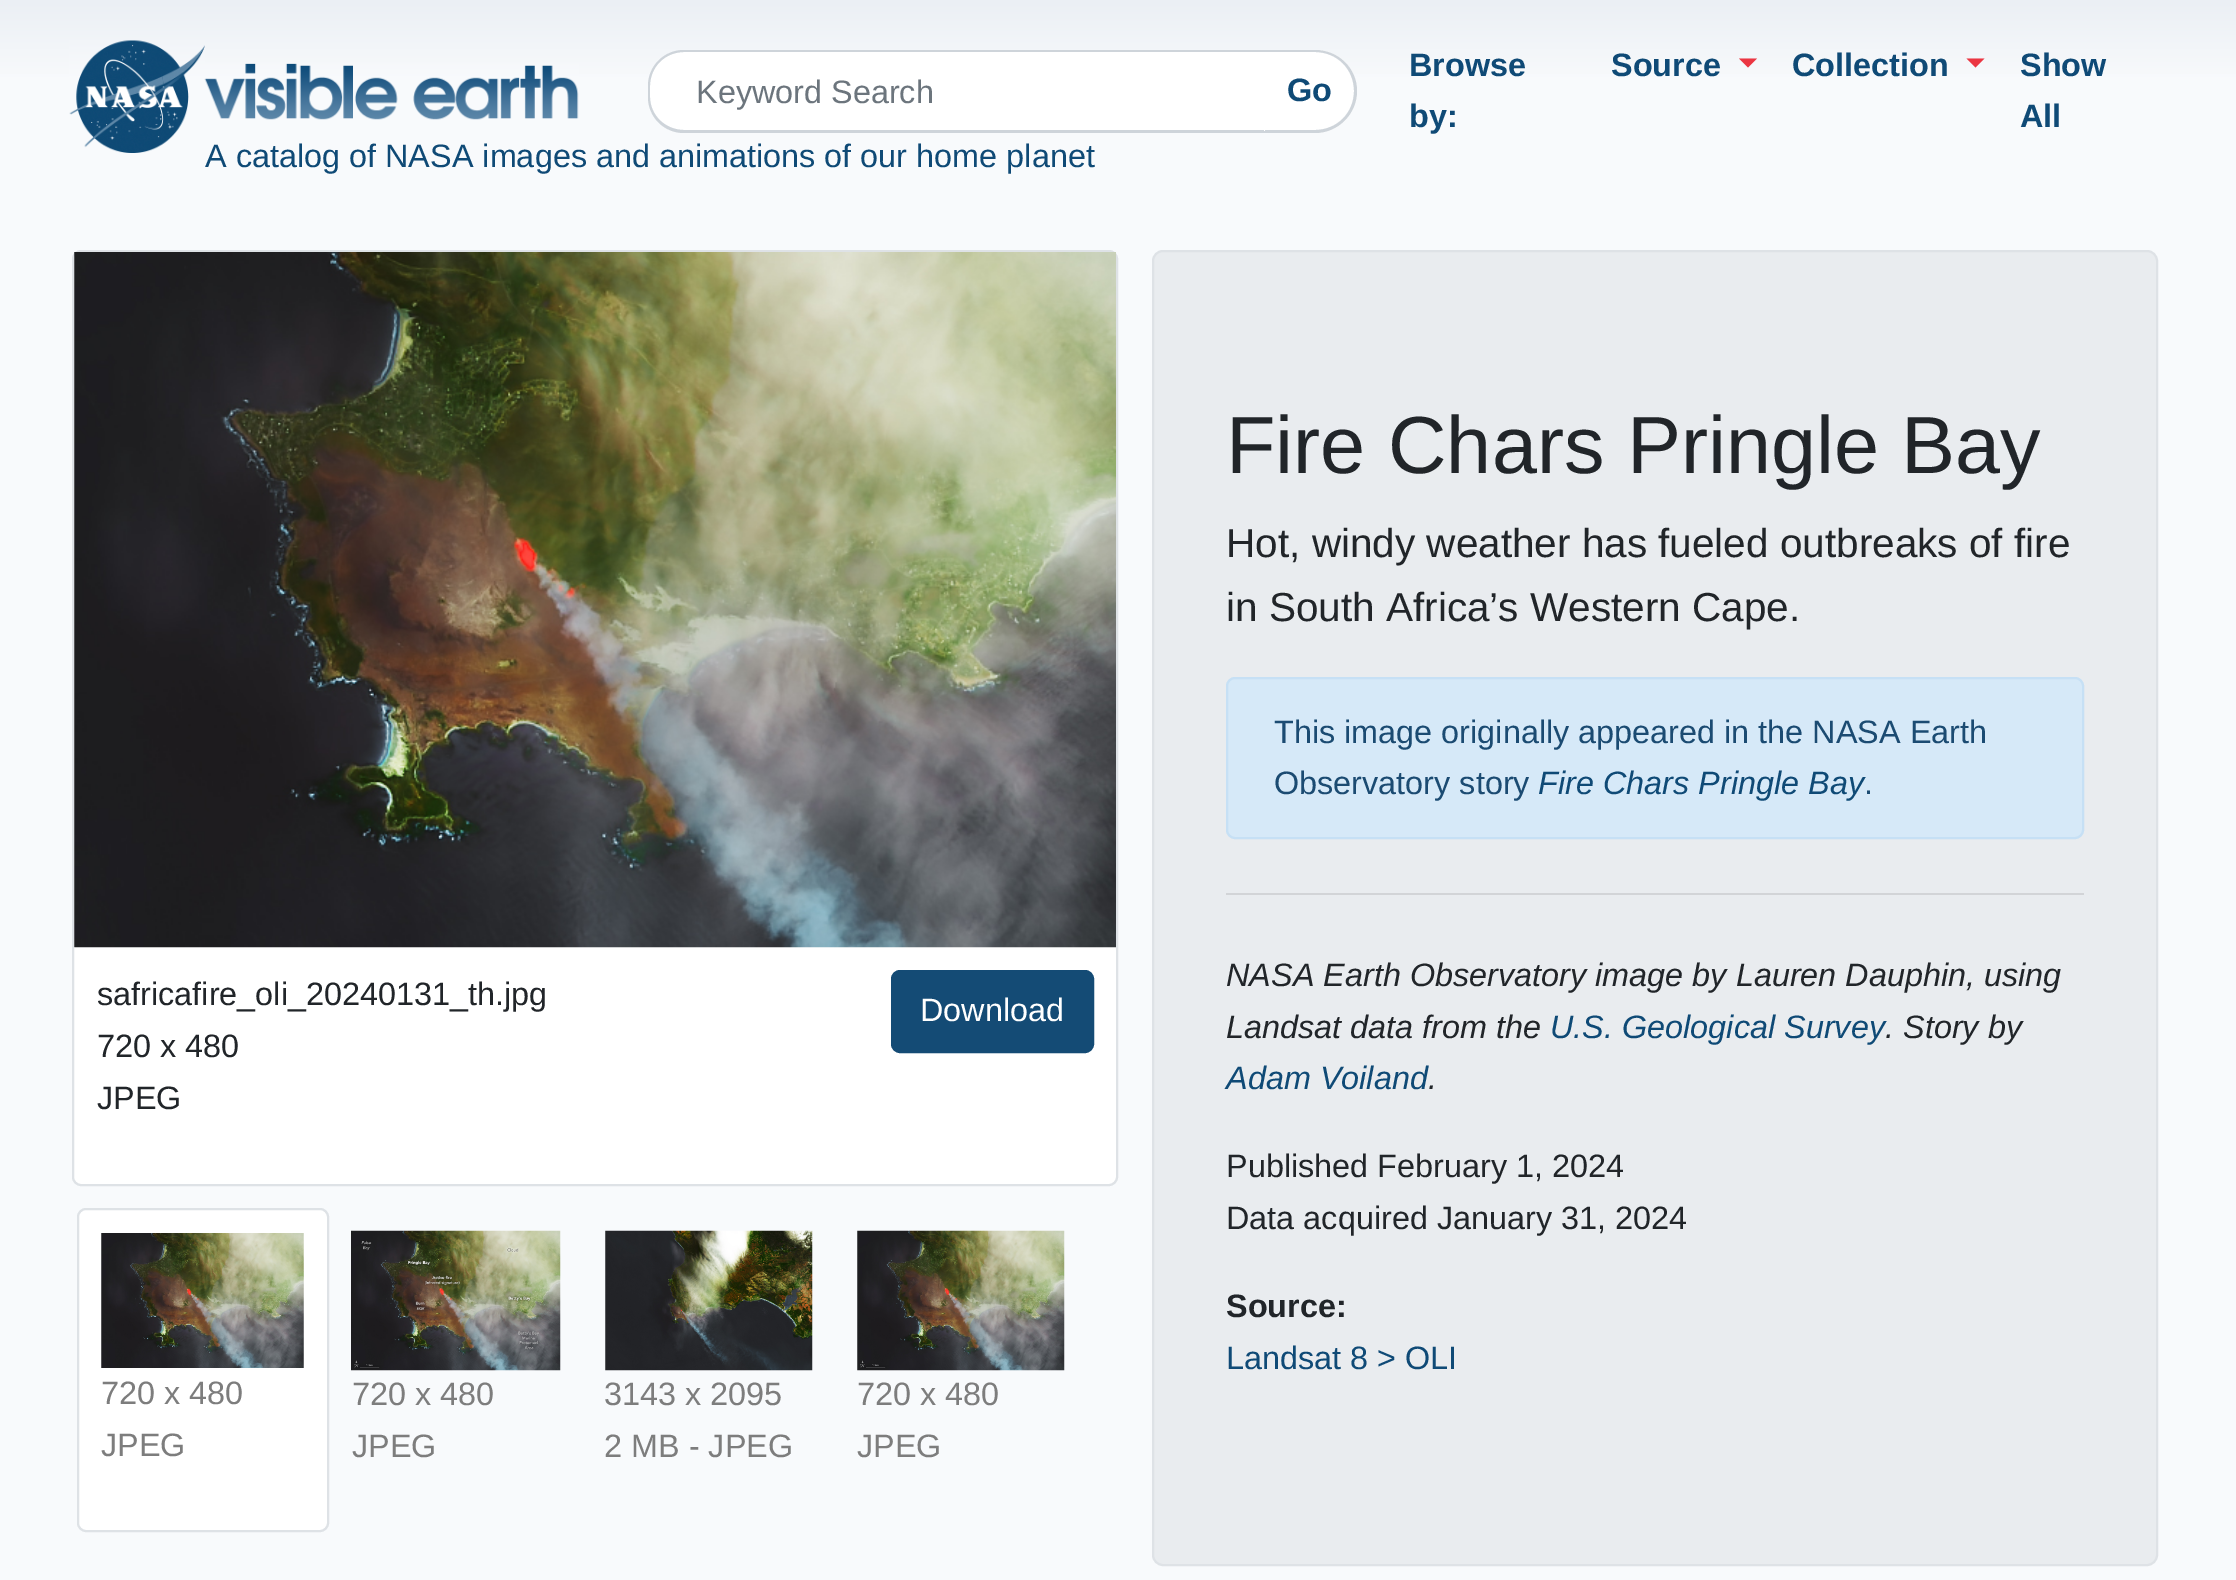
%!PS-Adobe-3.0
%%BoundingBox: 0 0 2236 1580
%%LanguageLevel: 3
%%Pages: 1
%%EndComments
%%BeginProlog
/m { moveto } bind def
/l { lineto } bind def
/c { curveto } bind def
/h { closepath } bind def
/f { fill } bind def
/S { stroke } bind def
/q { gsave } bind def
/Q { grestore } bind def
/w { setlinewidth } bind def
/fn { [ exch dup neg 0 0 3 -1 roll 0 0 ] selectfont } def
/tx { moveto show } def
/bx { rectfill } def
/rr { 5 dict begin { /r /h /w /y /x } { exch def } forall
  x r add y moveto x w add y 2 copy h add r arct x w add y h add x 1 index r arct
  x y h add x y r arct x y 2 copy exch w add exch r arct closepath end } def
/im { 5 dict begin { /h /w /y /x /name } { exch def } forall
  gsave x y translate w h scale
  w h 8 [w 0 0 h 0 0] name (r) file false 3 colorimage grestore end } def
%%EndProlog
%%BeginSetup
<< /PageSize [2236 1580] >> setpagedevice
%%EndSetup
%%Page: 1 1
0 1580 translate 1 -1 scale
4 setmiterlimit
1 setgray
0 0 2236 1580 bx
q 0 0 m 2236 0 l 2236 1580 l 0 1580 l h clip newpath
<< /ShadingType 2 /ColorSpace /DeviceRGB /Coords [1118 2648 1118 0] /Extend [true true] /Function << /FunctionType 3 /Domain [0 1] /Functions [<< /FunctionType 2 /Domain [0 1] /C0 [0.973 0.98 0.988] /C1 [0.973 0.98 0.988] /N 1 >> << /FunctionType 2 /Domain [0 1] /C0 [0.973 0.98 0.988] /C1 [0.973 0.98 0.988] /N 1 >> << /FunctionType 2 /Domain [0 1] /C0 [0.973 0.98 0.988] /C1 [0.922 0.937 0.957] /N 1 >>] /Bounds [0.8 0.97] /Encode [0 1 0 1 0 1] >> >> shfill Q
1265 50 m 1315.5 50 l 1338.5 50 1357 68.5 1357 91.5 c 1357 114.5 1338.5 133 1315.5 133 c 1265 133 l h f
0.808 0.831 0.855 setrgbcolor
1264 50 m 1315 50 l 1338 50 1357 68 1357 91 c 1357 114 1338 133 1315 133 c 1264 133 l h 1264 52 m 1315 52 l 1337 52 1354 69 1354 91 c 1354 113 1337 130 1315 130 c 1264 130 l h eofill
1 setgray
684 52 m 1265 52 l 1265 131 l 684 131 l 665 131 650 116 650 97 c 650 86 l 650 67 665 52 684 52 c h f
0.808 0.831 0.855 setrgbcolor
684 50 m 1264 50 l 1264 133 l 684 133 l 664 133 648 117 648 97 c 648 86 l 648 66 664 50 684 50 c h 684 52 m 1264 52 l 1264 130 l 684 130 l 665 130 650 115 650 97 c 650 86 l 650 67 665 52 684 52 c h eofill
/LiberationSans-Regular 32.4 fn
0.424 0.459 0.49 setrgbcolor
(Keyword Search) 696 103 tx
/LiberationSans-Bold 32.4 fn
0.059 0.29 0.463 setrgbcolor
(Go) 1287 101 tx
(Browse) 1409 76 tx
(by:) 1409 127 tx
(Source) 1611 76 tx
0.922 0.212 0.259 setrgbcolor
1739 58.5 m 1757 58.5 l 1748 67.5 l h f
0.059 0.29 0.463 setrgbcolor
(Collection) 1792 76 tx
0.922 0.212 0.259 setrgbcolor
1966.5 58.5 m 1984.5 58.5 l 1975.5 67.5 l h f
0.059 0.29 0.463 setrgbcolor
(Show) 2020 76 tx
(All) 2020 127 tx
(image0.raw) 69 40 136 113 im
(image1.raw) 204 63 375 57 im
/LiberationSans-Regular 32.4 fn
(A catalog of NASA images and animations of our home planet) 205 167 tx
1 setgray
73 251 1044 934 8 rr q f Q
0.871 0.886 0.902 setrgbcolor
2 w
S
(image2.raw) 74 252 1042 696 im
0.129 0.145 0.161 setrgbcolor
(safricafire_oli_20240131_th.jpg) 97 1005 tx
(720 x 480) 97 1057 tx
(JPEG) 97 1109 tx
0.078 0.294 0.459 setrgbcolor
892 971 201 81 8 rr q f Q
S
1 setgray
(Download) 920 1021 tx
78 1209 250 322 8 rr q f Q
0.871 0.886 0.902 setrgbcolor
S
(image3.raw) 101 1233 203 135 im
0.49 setgray
(720 x 480) 101 1404 tx
(JPEG) 101 1456 tx
(image4.raw) 351 1230 210 141 im
(720 x 480) 352 1405 tx
(JPEG) 352 1457 tx
(image5.raw) 605 1230 208 141 im
(3143 x 2095) 604 1405 tx
(2 MB - JPEG) 604 1457 tx
(image6.raw) 857 1230 208 141 im
(720 x 480) 857 1405 tx
(JPEG) 857 1457 tx
0.914 0.925 0.937 setrgbcolor
1153 251 1004 1314 10 rr q f Q
0.871 0.886 0.902 setrgbcolor
S
/LiberationSans-Regular 81 fn
0.129 0.145 0.161 setrgbcolor
(Fire Chars Pringle Bay) 1226 473 tx
/LiberationSans-Regular 40.5 fn
(Hot, windy weather has fueled outbreaks of fire) 1226 557 tx
(in South Africa’s Western Cape.) 1226 621 tx
0.839 0.914 0.973 setrgbcolor
1227 678 856 160 8 rr q f Q
0.776 0.878 0.961 setrgbcolor
S
/LiberationSans-Regular 32.4 fn
0.106 0.294 0.447 setrgbcolor
(This image originally appeared in the NASA Earth) 1274 743 tx
(Observatory story) 1274 794 tx
/LiberationSans-Italic 32.4 fn
0.059 0.29 0.463 setrgbcolor
(Fire Chars Pringle Bay) 1538 794 tx
/LiberationSans-Regular 32.4 fn
0.106 0.294 0.447 setrgbcolor
(.) 1864 794 tx
0.824 0.831 0.843 setrgbcolor
1226 893 858 2 bx
/LiberationSans-Italic 32.4 fn
0.129 0.145 0.161 setrgbcolor
(NASA Earth Observatory image by Lauren Dauphin, using) 1226 986 tx
(Landsat data from the) 1226 1038 tx
0.059 0.29 0.463 setrgbcolor
(U.S. Geological Survey) 1550 1038 tx
0.129 0.145 0.161 setrgbcolor
(. Story by) 1885 1038 tx
0.059 0.29 0.463 setrgbcolor
(Adam Voiland) 1226 1089 tx
0.129 0.145 0.161 setrgbcolor
(.) 1428 1089 tx
/LiberationSans-Regular 32.4 fn
(Published February 1, 2024) 1226 1177 tx
(Data acquired January 31, 2024) 1226 1229 tx
/LiberationSans-Bold 32.4 fn
(Source:) 1226 1317 tx
/LiberationSans-Regular 32.4 fn
0.059 0.29 0.463 setrgbcolor
(Landsat 8 > OLI) 1226 1369 tx
showpage
%%EOF
